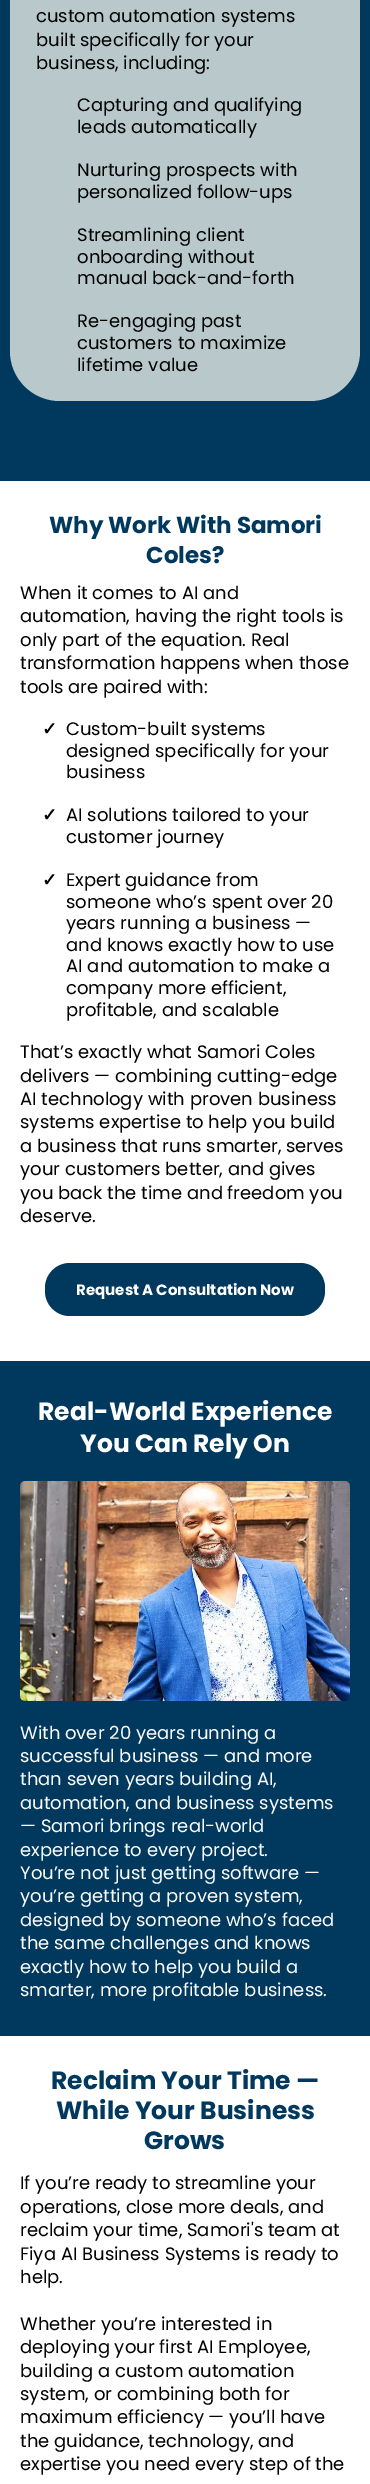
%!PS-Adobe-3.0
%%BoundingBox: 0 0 370 2484
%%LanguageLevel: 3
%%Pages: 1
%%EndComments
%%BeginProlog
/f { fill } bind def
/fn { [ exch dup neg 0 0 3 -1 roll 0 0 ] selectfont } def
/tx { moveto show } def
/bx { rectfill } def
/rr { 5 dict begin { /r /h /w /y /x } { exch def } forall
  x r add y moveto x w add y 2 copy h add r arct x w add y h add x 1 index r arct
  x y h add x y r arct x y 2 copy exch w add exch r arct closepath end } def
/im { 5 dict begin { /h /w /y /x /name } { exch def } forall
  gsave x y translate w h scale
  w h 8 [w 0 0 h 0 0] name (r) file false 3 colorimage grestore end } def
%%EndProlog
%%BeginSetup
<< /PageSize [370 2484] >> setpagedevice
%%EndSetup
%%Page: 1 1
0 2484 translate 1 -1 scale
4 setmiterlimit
1 setgray
0 0 370 2484 bx
0.004 0.224 0.369 setrgbcolor
0 0 370 481 bx
0.722 0.784 0.796 setrgbcolor
10 -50 350 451 50 rr f
/Poppins-Regular 18 fn
0 setgray
(custom automation systems) 36 22 tx
(built specifically for your) 36 46 tx
(business, including:) 36 69 tx
(Capturing and qualifying) 77 111 tx
(leads automatically) 77 133 tx
(Nurturing prospects with) 77 176 tx
(personalized follow-ups) 77 198 tx
(Streamlining client) 77 241 tx
(onboarding without) 77 263 tx
(manual back-and-forth) 77 284 tx
(Re-engaging past) 77 327 tx
(customers to maximize) 77 349 tx
(lifetime value) 77 371 tx
/Poppins-Bold 23 fn
0.004 0.224 0.369 setrgbcolor
(Why Work With Samori) 49 533 tx
(Coles?) 146 563 tx
/Poppins-Regular 18 fn
0 setgray
(When it comes to AI and) 20 599 tx
(automation, having the right tools is) 20 622 tx
(only part of the equation. Real) 20 646 tx
(transformation happens when those) 20 669 tx
(tools are paired with:) 20 693 tx
/DejaVuSans-Bold 18 fn
(✓) 42 735 tx
/Poppins-Regular 18 fn
(Custom-built systems) 66 735 tx
(designed specifically for your) 66 757 tx
(business) 66 778 tx
/DejaVuSans-Bold 18 fn
(✓) 42 821 tx
/Poppins-Regular 18 fn
(AI solutions tailored to your) 66 821 tx
(customer journey) 66 843 tx
/DejaVuSans-Bold 18 fn
(✓) 42 886 tx
/Poppins-Regular 18 fn
(Expert guidance from) 66 886 tx
(someone who’s spent over 20) 66 908 tx
(years running a business —) 66 929 tx
(and knows exactly how to use) 66 951 tx
(AI and automation to make a) 66 972 tx
(company more efficient,) 66 994 tx
(profitable, and scalable) 66 1016 tx
(That’s exactly what Samori Coles) 20 1058 tx
(delivers — combining cutting-edge) 20 1082 tx
(AI technology with proven business) 20 1105 tx
(systems expertise to help you build) 20 1128 tx
(a business that runs smarter, serves) 20 1152 tx
(your customers better, and gives) 20 1175 tx
(you back the time and freedom you) 20 1199 tx
(deserve.) 20 1222 tx
0.004 0.224 0.369 setrgbcolor
45 1263 280 53 25 rr f
/Poppins-Bold 15 fn
1 setgray
(Request A Consultation Now) 76 1295 tx
0.004 0.224 0.369 setrgbcolor
0 1361 370 675 bx
/Poppins-Bold 25 fn
1 setgray
(Real-World Experience) 38 1420 tx
(You Can Rely On) 80 1452 tx
(image0.raw) 20 1481 330 220 im
/Poppins-Regular 18 fn
(With over 20 years running a) 20 1739 tx
(successful business — and more) 20 1762 tx
(than seven years building AI,) 20 1785 tx
(automation, and business systems) 20 1809 tx
(— Samori brings real-world) 20 1832 tx
(experience to every project.) 20 1856 tx
(You’re not just getting software —) 20 1879 tx
(you’re getting a proven system,) 20 1902 tx
(designed by someone who’s faced) 20 1926 tx
(the same challenges and knows) 20 1949 tx
(exactly how to help you build a) 20 1973 tx
(smarter, more profitable business.) 20 1996 tx
/Poppins-Bold 25 fn
0.004 0.224 0.369 setrgbcolor
(Reclaim Your Time —) 51 2089 tx
(While Your Business) 56 2119 tx
(Grows) 144 2149 tx
/Poppins-Regular 18 fn
0 setgray
(If you’re ready to streamline your) 20 2189 tx
(operations, close more deals, and) 20 2213 tx
(reclaim your time, Samori's team at) 20 2236 tx
(Fiya AI Business Systems is ready to) 20 2260 tx
(help.) 20 2283 tx
(Whether you’re interested in) 20 2330 tx
(deploying your first AI Employee,) 20 2353 tx
(building a custom automation) 20 2377 tx
(system, or combining both for) 20 2400 tx
(maximum efficiency — you’ll have) 20 2423 tx
(the guidance, technology, and) 20 2447 tx
(expertise you need every step of the) 20 2470 tx
showpage
%%EOF
